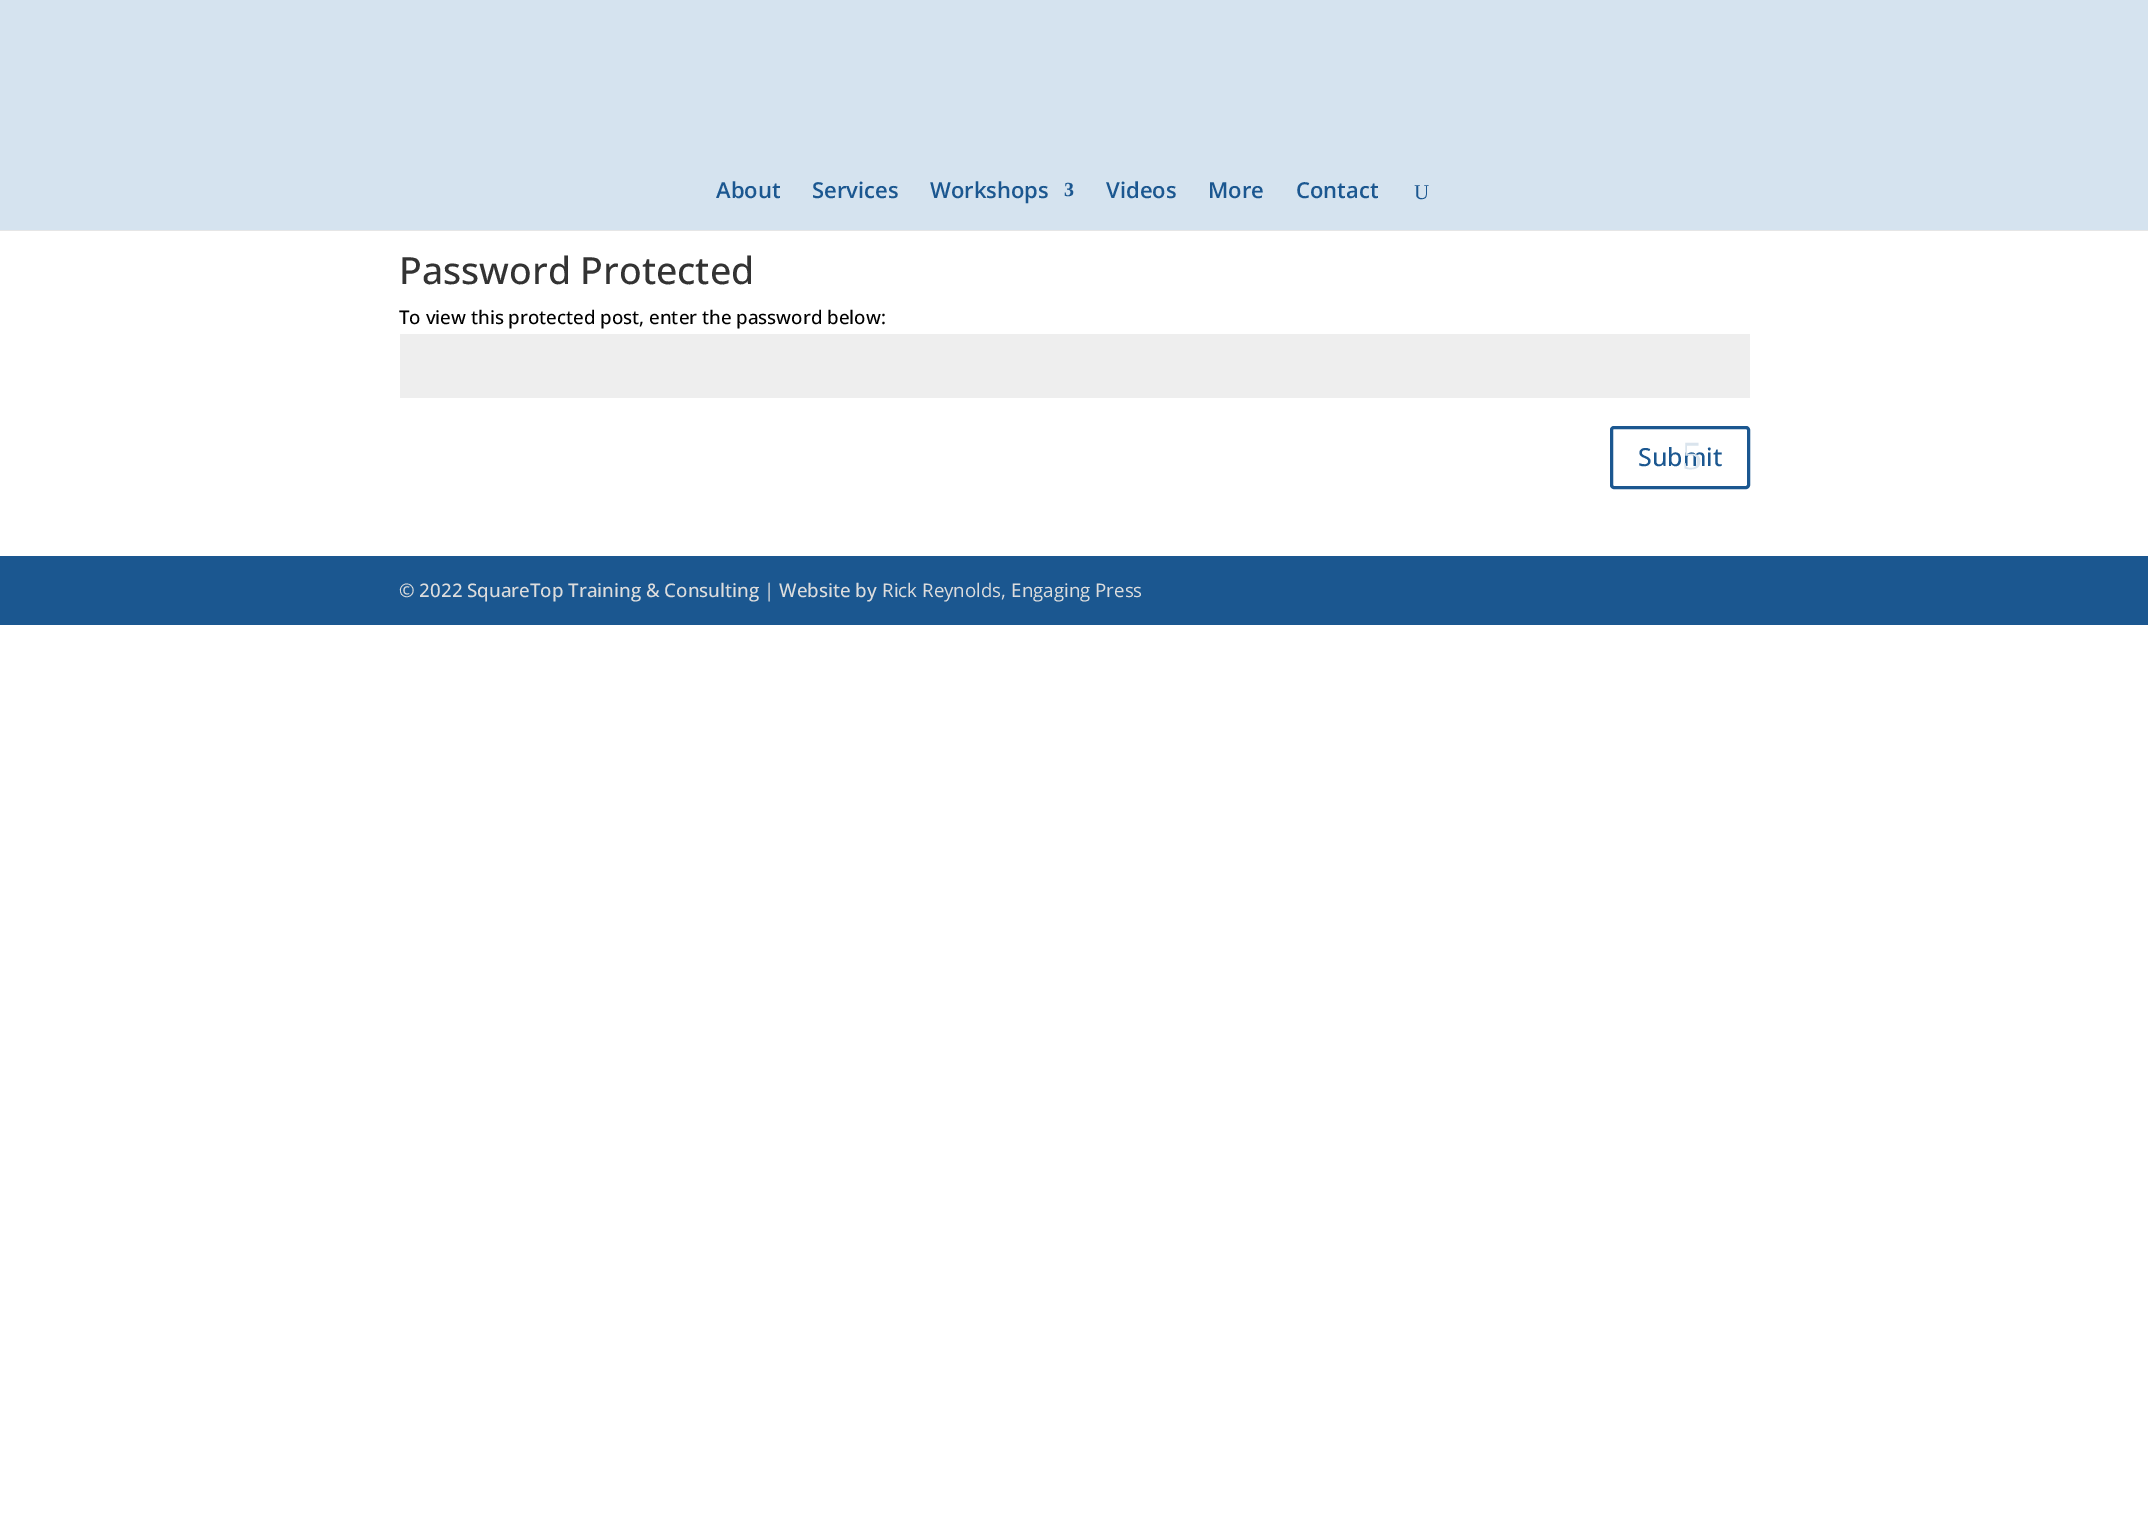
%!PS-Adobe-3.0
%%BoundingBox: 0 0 2148 1529
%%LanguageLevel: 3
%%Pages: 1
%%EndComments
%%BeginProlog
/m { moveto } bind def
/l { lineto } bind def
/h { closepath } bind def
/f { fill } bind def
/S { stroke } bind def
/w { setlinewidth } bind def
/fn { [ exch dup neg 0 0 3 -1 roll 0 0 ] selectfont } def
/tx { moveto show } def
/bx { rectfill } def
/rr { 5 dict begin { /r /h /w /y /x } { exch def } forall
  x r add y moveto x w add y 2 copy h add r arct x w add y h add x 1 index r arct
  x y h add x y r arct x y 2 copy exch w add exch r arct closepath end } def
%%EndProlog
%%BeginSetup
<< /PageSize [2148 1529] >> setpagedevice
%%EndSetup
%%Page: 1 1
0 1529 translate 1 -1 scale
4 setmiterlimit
1 setgray
0 0 2148 1529 bx
0.902 setgray
0 230 m 0 231 l 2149 231 l 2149 1 l 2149 230 l h f
0.835 0.89 0.937 setrgbcolor
0 0 2148 230 bx
/OpenSans-SemiBold 22 fn
0.106 0.341 0.565 setrgbcolor
(About) 716 198 tx
(Services) 812 198 tx
(Workshops) 930 198 tx
/LiberationSerif-Bold 20 fn
(3) 1064 196 tx
/OpenSans-SemiBold 22 fn
(Videos) 1106 198 tx
(More) 1208 198 tx
(Contact) 1296 198 tx
/LiberationSerif-Regular 21 fn
(U) 1414 199 tx
/OpenSans-Medium 37.5 fn
0.2 setgray
(Password Protected) 399 284 tx
/OpenSans-Medium 18.75 fn
0 setgray
(To view this protected post, enter the password below:) 399 324 tx
0.933 setgray
400 334 1350 64 bx
0.106 0.341 0.565 setrgbcolor
3 w
1611.5 427.5 137 60 2.5 rr S
/OpenSans-Medium 25 fn
(Submit) 1638 466 tx
/LiberationSerif-Regular 40 fn
0.855 0.894 0.929 setrgbcolor
(5) 1682 469 tx
0.106 0.341 0.565 setrgbcolor
0 556 2148 69 bx
/OpenSans-Medium 18.75 fn
0.867 setgray
(© 2022 SquareTop Training & Consulting | Website by) 399 597 tx
/OpenSans-Regular 18.75 fn
(Rick Reynolds, Engaging Press) 882 597 tx
showpage
%%EOF
